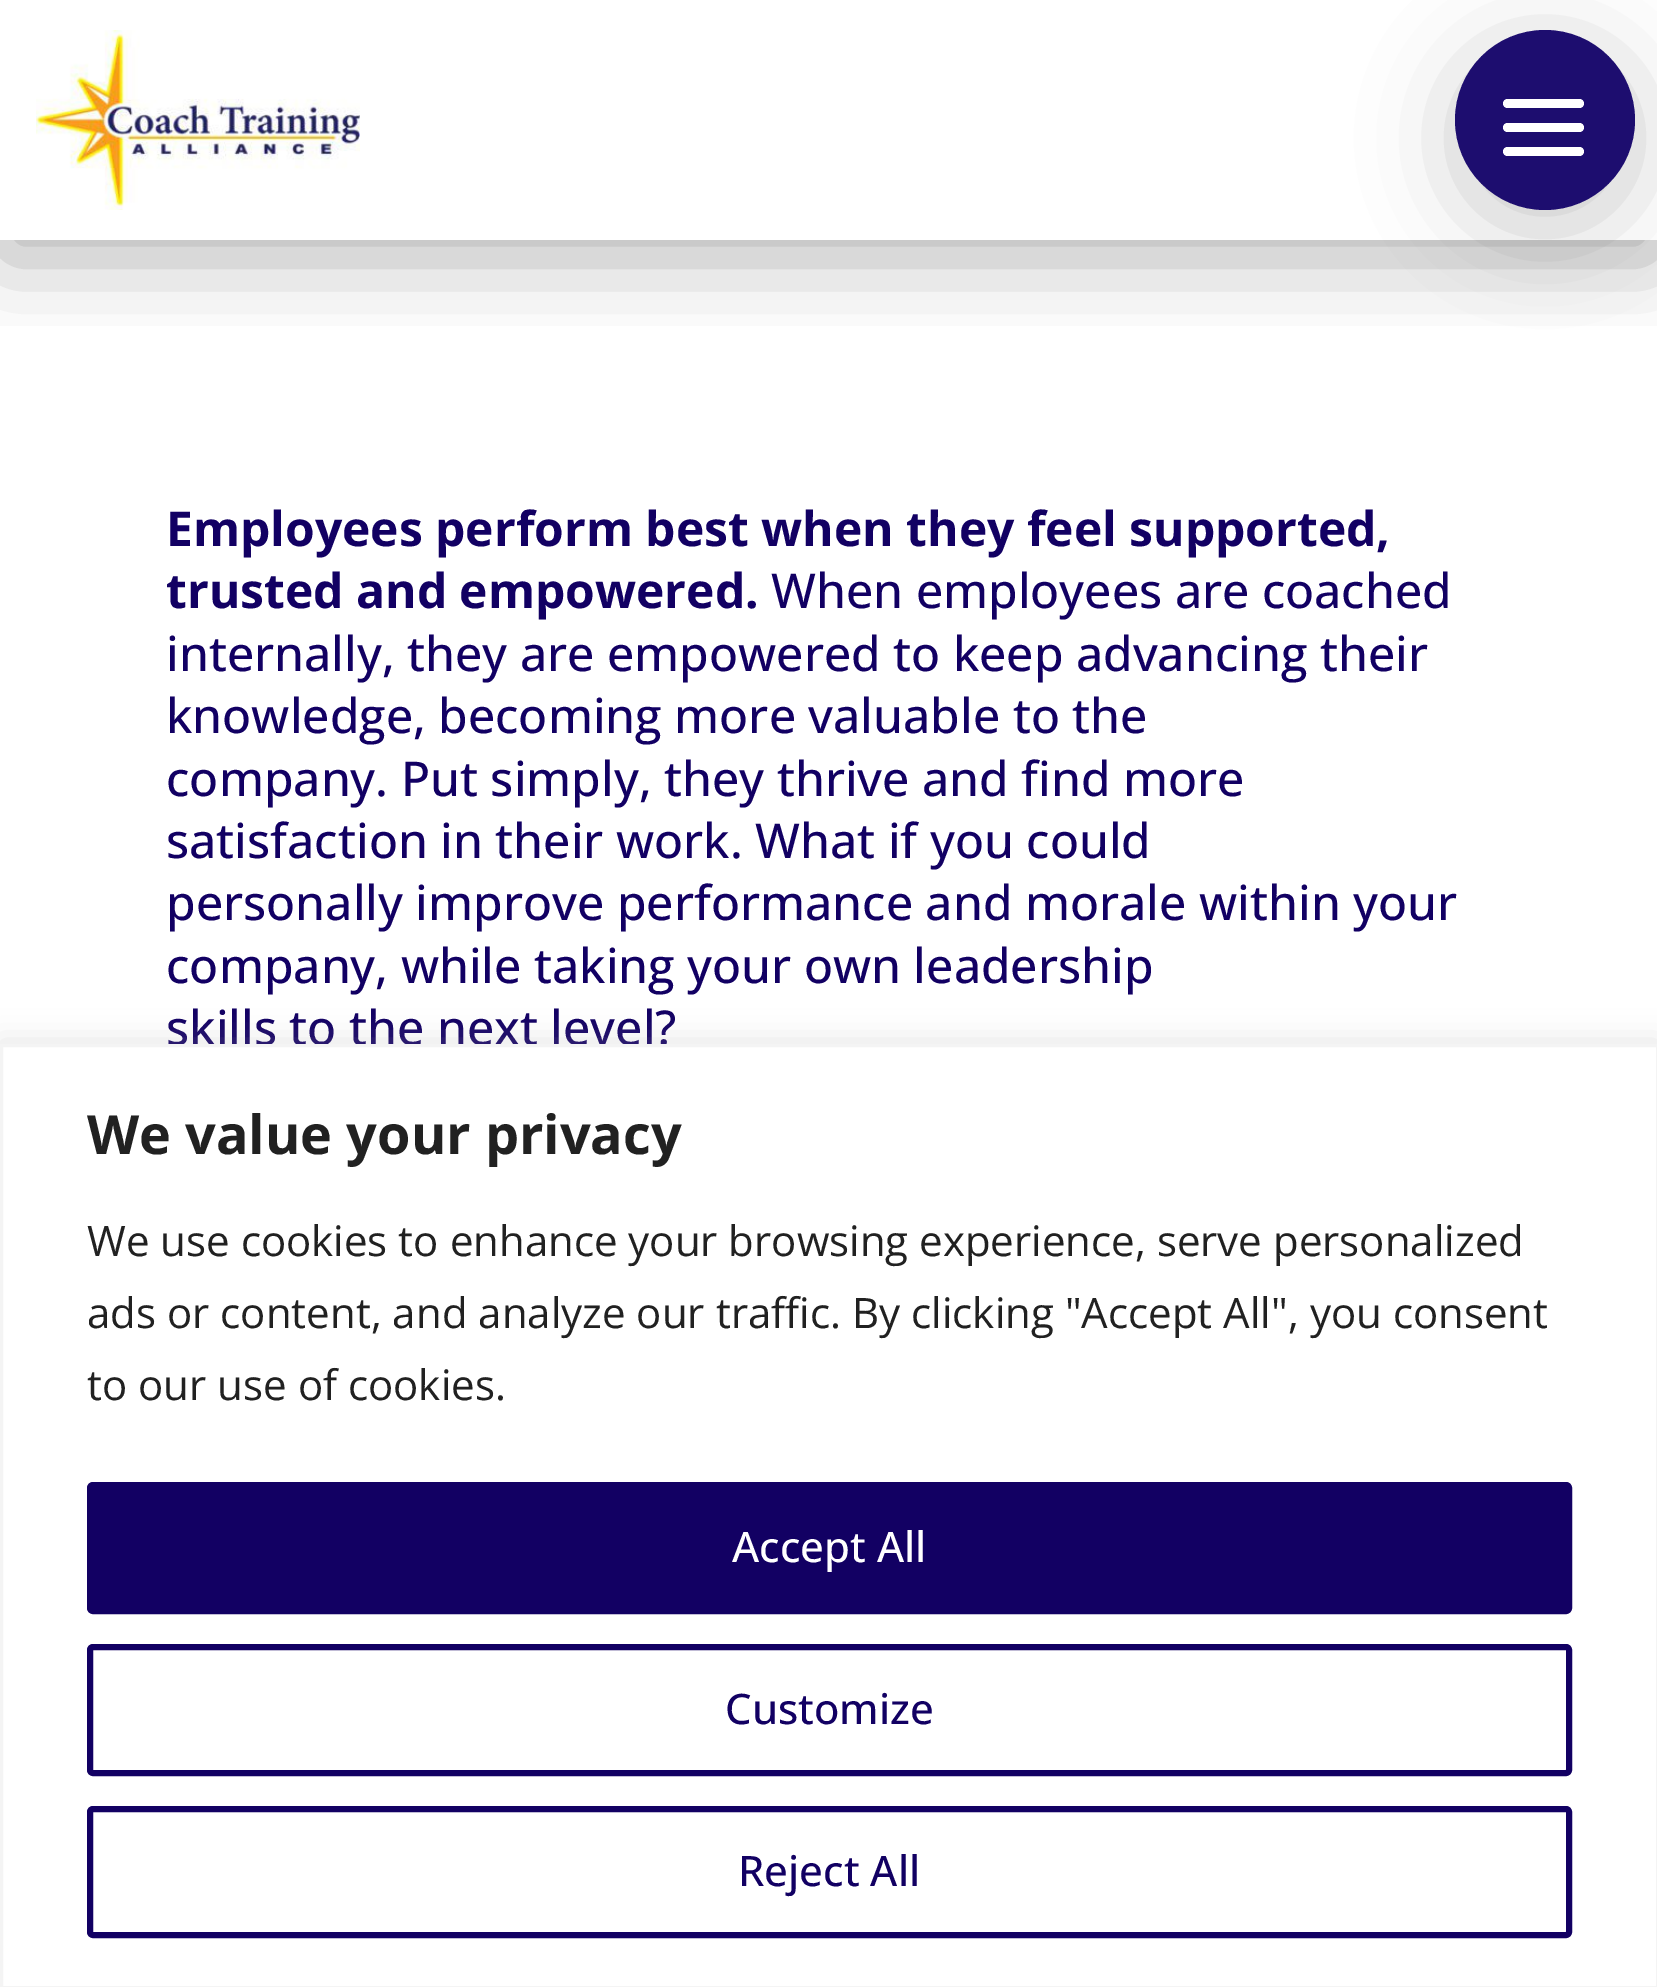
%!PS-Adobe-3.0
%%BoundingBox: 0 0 1657 1987
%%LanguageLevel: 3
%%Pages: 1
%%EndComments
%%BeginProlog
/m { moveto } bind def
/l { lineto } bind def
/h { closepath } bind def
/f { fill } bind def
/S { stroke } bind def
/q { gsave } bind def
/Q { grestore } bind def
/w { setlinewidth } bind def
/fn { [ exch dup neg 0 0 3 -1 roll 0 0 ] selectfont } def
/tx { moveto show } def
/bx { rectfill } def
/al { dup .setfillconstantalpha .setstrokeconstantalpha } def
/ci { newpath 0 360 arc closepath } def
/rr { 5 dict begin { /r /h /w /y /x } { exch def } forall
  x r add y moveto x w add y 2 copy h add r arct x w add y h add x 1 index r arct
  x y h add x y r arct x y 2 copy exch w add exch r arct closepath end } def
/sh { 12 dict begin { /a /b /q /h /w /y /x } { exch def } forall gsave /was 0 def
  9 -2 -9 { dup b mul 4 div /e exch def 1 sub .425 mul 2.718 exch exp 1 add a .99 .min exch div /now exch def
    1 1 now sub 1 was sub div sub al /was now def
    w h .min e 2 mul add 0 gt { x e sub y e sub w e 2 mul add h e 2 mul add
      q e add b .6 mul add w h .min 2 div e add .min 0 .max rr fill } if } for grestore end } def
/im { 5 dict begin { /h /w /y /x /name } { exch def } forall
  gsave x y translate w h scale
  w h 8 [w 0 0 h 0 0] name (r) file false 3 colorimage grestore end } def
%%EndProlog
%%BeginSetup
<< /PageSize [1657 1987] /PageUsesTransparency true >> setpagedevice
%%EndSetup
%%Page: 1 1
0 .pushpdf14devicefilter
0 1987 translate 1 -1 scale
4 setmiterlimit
1 setgray
0 0 1657 1987 bx
q
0 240 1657 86 rectclip
0 setgray
0 18 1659 240 0 45 0.3 sh
Q
(image0.raw) 36 30 324 180 im
0 setgray
1455 48 180 180 90 45 0.2 sh
0.114 0.051 0.435 setrgbcolor
1545 120 90 ci f
1 setgray
1503 123 81 9 4.5 rr f
1503 99 81 9 4.5 rr f
1503 147 81 9 4.5 rr f
/OpenSans-Bold 48 fn
0.071 0 0.388 setrgbcolor
(Employees perform best when they feel supported,) 166 546 tx
(trusted and empowered.) 166 608 tx
/OpenSans-Medium 48 fn
(When employees are coached) 771 608 tx
(internally, they are empowered to keep advancing their) 166 671 tx
(knowledge, becoming more valuable to the) 166 733 tx
(company. Put simply, they thrive and find more) 166 796 tx
(satisfaction in their work. What if you could) 166 858 tx
(personally improve performance and morale within your) 166 920 tx
(company, while taking your own leadership) 166 983 tx
(skills to the next level?) 166 1045 tx
0.675 0.671 0.671 setrgbcolor
0 1041 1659 945 0 15 0.3 sh
1 setgray
1.5 1045.5 m 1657.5 1045.5 l 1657.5 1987.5 l 1.5 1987.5 l h q f Q
0.957 setgray
3 w
S
/OpenSans-Bold 54 fn
0.129 setgray
(We value your privacy) 87 1154 tx
/OpenSans-Regular 42 fn
(We use cookies to enhance your browsing experience, serve personalized) 87 1256 tx
(ads or content, and analyze our traffic. By clicking "Accept All", you consent) 87 1328 tx
(to our use of cookies.) 87 1400 tx
0.071 0 0.388 setrgbcolor
90 1485 1479 126 3 rr q f Q
6 w
S
/OpenSans-Medium 42 fn
1 setgray
(Accept All) 732 1562 tx
0.071 0 0.388 setrgbcolor
90 1647 1479 126 3 rr S
(Customize) 725 1724 tx
90 1809 1479 126 3 rr S
(Reject All) 738 1886 tx
.poppdf14devicefilter showpage
%%EOF
